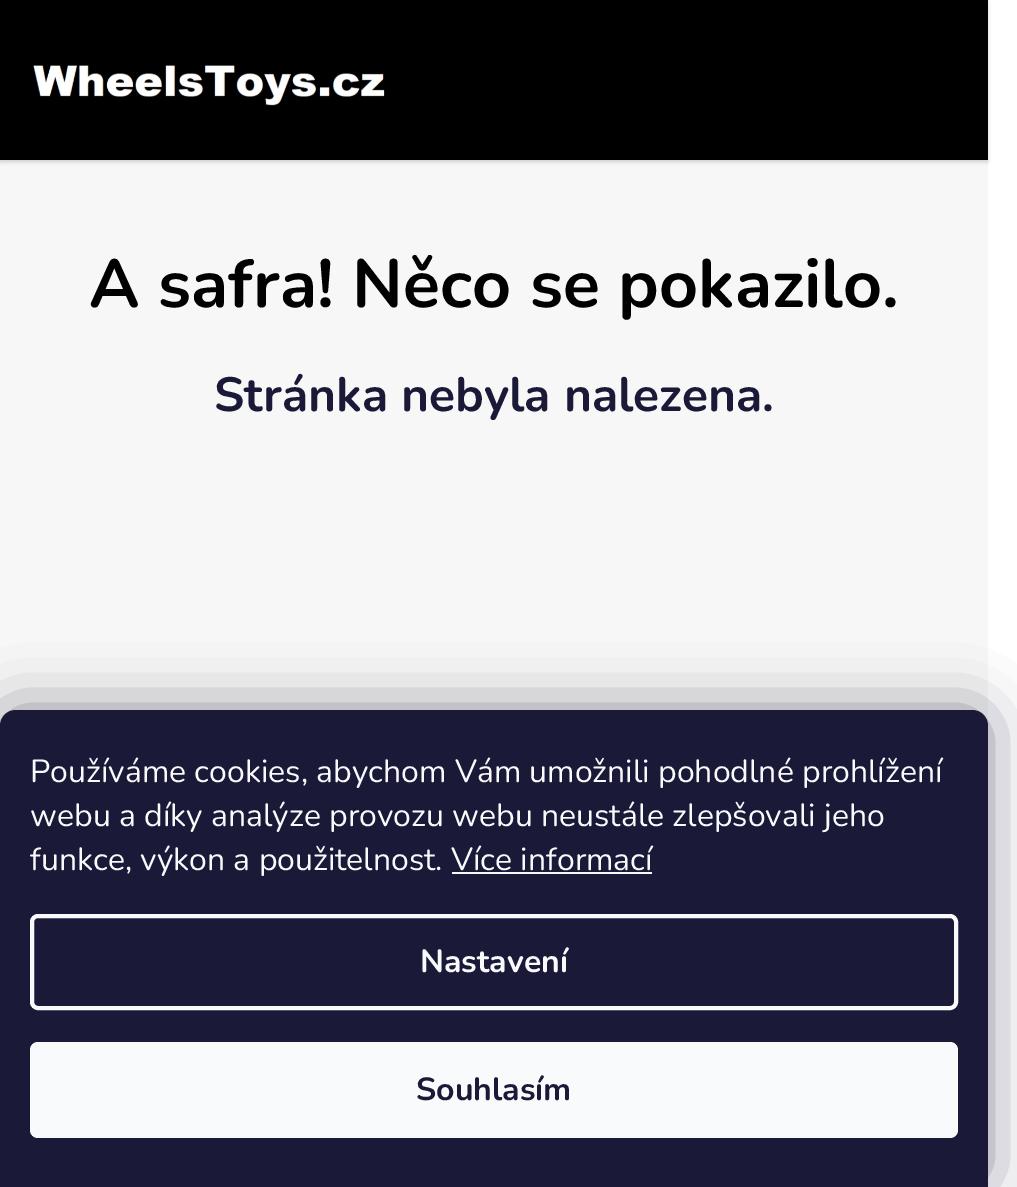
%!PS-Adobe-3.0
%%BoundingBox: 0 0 1017 1187
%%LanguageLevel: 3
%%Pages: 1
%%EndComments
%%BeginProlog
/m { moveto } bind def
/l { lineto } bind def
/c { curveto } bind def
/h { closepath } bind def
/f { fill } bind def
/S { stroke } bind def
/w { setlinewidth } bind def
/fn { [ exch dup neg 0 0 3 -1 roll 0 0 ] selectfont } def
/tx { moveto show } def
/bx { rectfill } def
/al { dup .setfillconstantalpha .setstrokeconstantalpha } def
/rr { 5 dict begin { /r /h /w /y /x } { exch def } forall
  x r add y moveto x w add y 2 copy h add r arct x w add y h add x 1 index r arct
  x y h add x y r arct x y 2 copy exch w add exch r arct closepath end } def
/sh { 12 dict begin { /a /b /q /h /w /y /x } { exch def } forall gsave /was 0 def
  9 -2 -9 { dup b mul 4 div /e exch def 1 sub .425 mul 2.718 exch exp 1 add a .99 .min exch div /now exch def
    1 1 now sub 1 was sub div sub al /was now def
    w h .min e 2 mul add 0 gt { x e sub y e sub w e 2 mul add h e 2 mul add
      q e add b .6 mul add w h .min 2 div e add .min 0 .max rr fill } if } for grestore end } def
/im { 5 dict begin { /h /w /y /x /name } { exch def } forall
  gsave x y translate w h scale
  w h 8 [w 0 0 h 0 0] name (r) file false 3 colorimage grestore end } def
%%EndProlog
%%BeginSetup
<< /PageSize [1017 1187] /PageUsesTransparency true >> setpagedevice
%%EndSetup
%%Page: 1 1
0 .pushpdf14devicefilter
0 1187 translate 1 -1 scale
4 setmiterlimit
1 setgray
0 0 1017 1187 bx
0.969 setgray
0 160 988 566 bx
0 setgray
0 2 988 160 0 2 0.16 sh
0 0 988 160 bx
(image0.raw) 33 65 352 41 im
/Nunito-Bold 68 fn
(A safra! Něco se pokazilo.) 89 307 tx
/Nunito-Bold 48 fn
0.102 0.098 0.216 setrgbcolor
(Stránka nebyla nalezena.) 214 411 tx
0.106 0.098 0.224 setrgbcolor
0 710 988 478 16 30 0.5 sh
0.102 0.098 0.216 setrgbcolor
16 710 m 972 710 l 981 710 988 717 988 726 c 988 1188 l 0 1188 l 0 726 l 0 717 7 710 16 710 c h f
/Nunito-Regular 32 fn
0.973 0.98 0.984 setrgbcolor
(Používáme cookies, abychom Vám umožnili pohodlné prohlížení) 30 782 tx
(webu a díky analýze provozu webu neustále zlepšovali jeho) 30 826 tx
(funkce, výkon a použitelnost. Více informací) 30 870 tx
452 872 200 2 bx
4 w
32 916 924 92 6 rr S
/Nunito-Bold 32 fn
(Nastavení) 420 972 tx
30 1042 928 96 8 rr f
0.102 0.098 0.216 setrgbcolor
(Souhlasím) 416 1100 tx
.poppdf14devicefilter showpage
%%EOF
